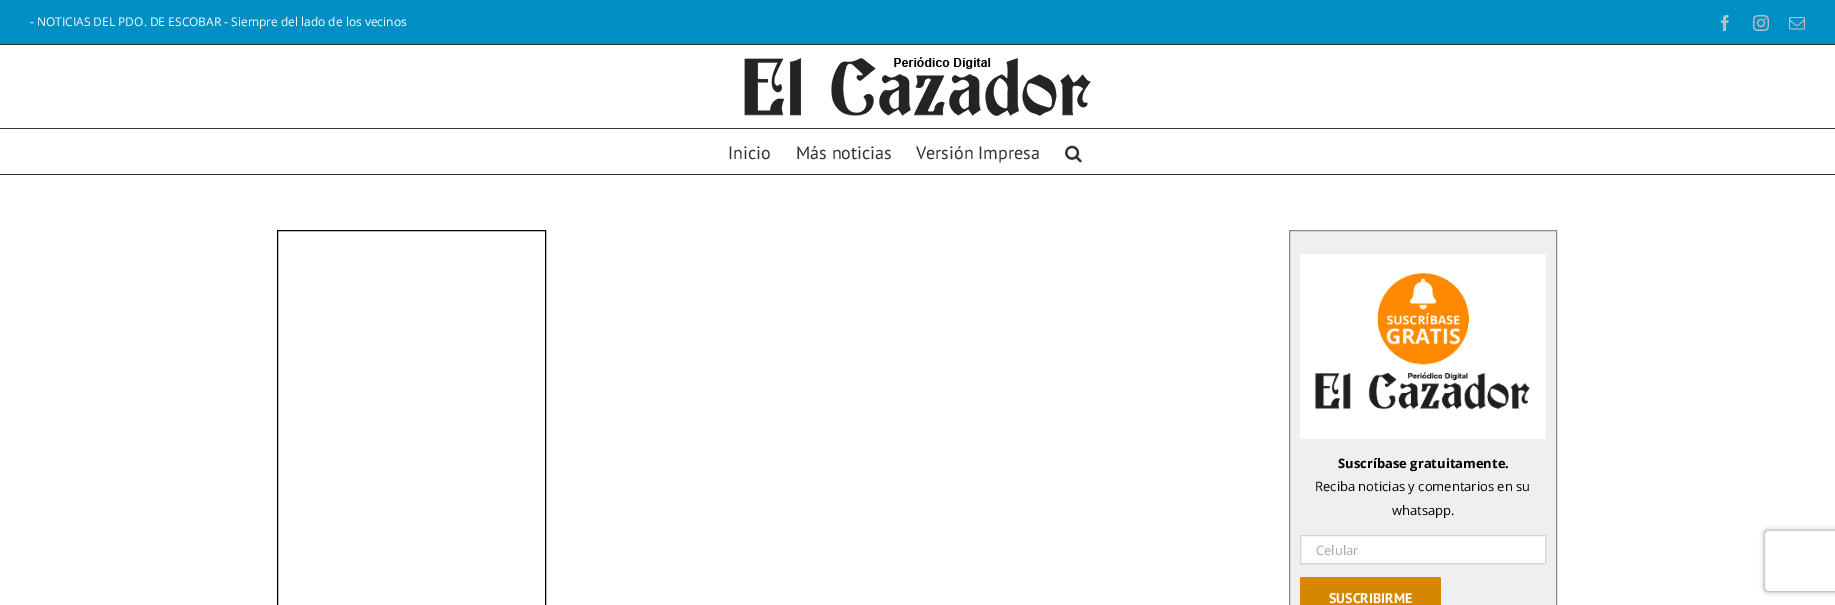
%!PS-Adobe-3.0
%%BoundingBox: 0 0 1835 605
%%LanguageLevel: 3
%%Pages: 1
%%EndComments
%%BeginProlog
/m { moveto } bind def
/l { lineto } bind def
/c { curveto } bind def
/h { closepath } bind def
/f { fill } bind def
/S { stroke } bind def
/q { gsave } bind def
/Q { grestore } bind def
/fn { [ exch dup neg 0 0 3 -1 roll 0 0 ] selectfont } def
/tx { moveto show } def
/bx { rectfill } def
/al { dup .setfillconstantalpha .setstrokeconstantalpha } def
/rr { 5 dict begin { /r /h /w /y /x } { exch def } forall
  x r add y moveto x w add y 2 copy h add r arct x w add y h add x 1 index r arct
  x y h add x y r arct x y 2 copy exch w add exch r arct closepath end } def
/sh { 12 dict begin { /a /b /q /h /w /y /x } { exch def } forall gsave /was 0 def
  9 -2 -9 { dup b mul 4 div /e exch def 1 sub .425 mul 2.718 exch exp 1 add a .99 .min exch div /now exch def
    1 1 now sub 1 was sub div sub al /was now def
    w h .min e 2 mul add 0 gt { x e sub y e sub w e 2 mul add h e 2 mul add
      q e add b .6 mul add w h .min 2 div e add .min 0 .max rr fill } if } for grestore end } def
/im { 5 dict begin { /h /w /y /x /name } { exch def } forall
  gsave x y translate w h scale
  w h 8 [w 0 0 h 0 0] name (r) file false 3 colorimage grestore end } def
%%EndProlog
%%BeginSetup
<< /PageSize [1835 605] /PageUsesTransparency true >> setpagedevice
%%EndSetup
%%Page: 1 1
0 .pushpdf14devicefilter
0 605 translate 1 -1 scale
4 setmiterlimit
1 setgray
0 0 1835 605 bx
0 0.561 0.773 setrgbcolor
0 0 1835 44 bx
0.2 setgray
0 44 1835 1 bx
/OpenSans-Regular 12 fn
1 setgray
(- NOTICIAS DEL PDO. DE ESCOBAR - Siempre del lado de los vecinos) 30 26 tx
(image0.raw) 1721 15 8 16 im
(image1.raw) 1753 15 16 16 im
(image2.raw) 1789 17 16 13 im
0.2 setgray
0 128 1835 1 bx
(image3.raw) 744 57 347 59 im
0 174 1835 1 bx
/PTSans-Regular 18 fn
(Inicio) 728 159 tx
(Más noticias) 796 159 tx
(Versión Impresa) 916 159 tx
(image4.raw) 1065 145 17 18 im
0 setgray
277.5 230.5 268 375 rectstroke
0.937 setgray
1289.5 230.5 m 1556.5 230.5 l 1556.5 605.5 l 1289.5 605.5 l h q f Q
0.537 setgray
S
(image5.raw) 1300 254 246 185 im
/OpenSans-Bold 13 fn
0 setgray
(Suscríbase gratuitamente.) 1338 468 tx
/OpenSans-Regular 13 fn
(Reciba noticias y comentarios en su) 1315 491 tx
(whatsapp.) 1392 515 tx
1 setgray
1300.5 535.5 m 1545.5 535.5 l 1545.5 563.5 l 1300.5 563.5 l h q f Q
0.824 setgray
S
0.667 0.663 0.663 setrgbcolor
(Celular) 1316 555 tx
0.835 0.529 0 setrgbcolor
1300 577 141 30 2 rr f
/PTSans-Bold 14 fn
1 setgray
(SUSCRIBIRME) 1329 603 tx
q
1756 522 m 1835 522 l 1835 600 l 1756 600 l h 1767 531 m 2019 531 l 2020 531 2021 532 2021 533 c 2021 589 l 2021 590 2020 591 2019 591 c 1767 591 l 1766 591 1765 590 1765 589 c 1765 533 l 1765 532 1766 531 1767 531 c h eoclip newpath
0.502 setgray
1765 531 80 60 2 2.5 1 sh
Q
.poppdf14devicefilter showpage
%%EOF
